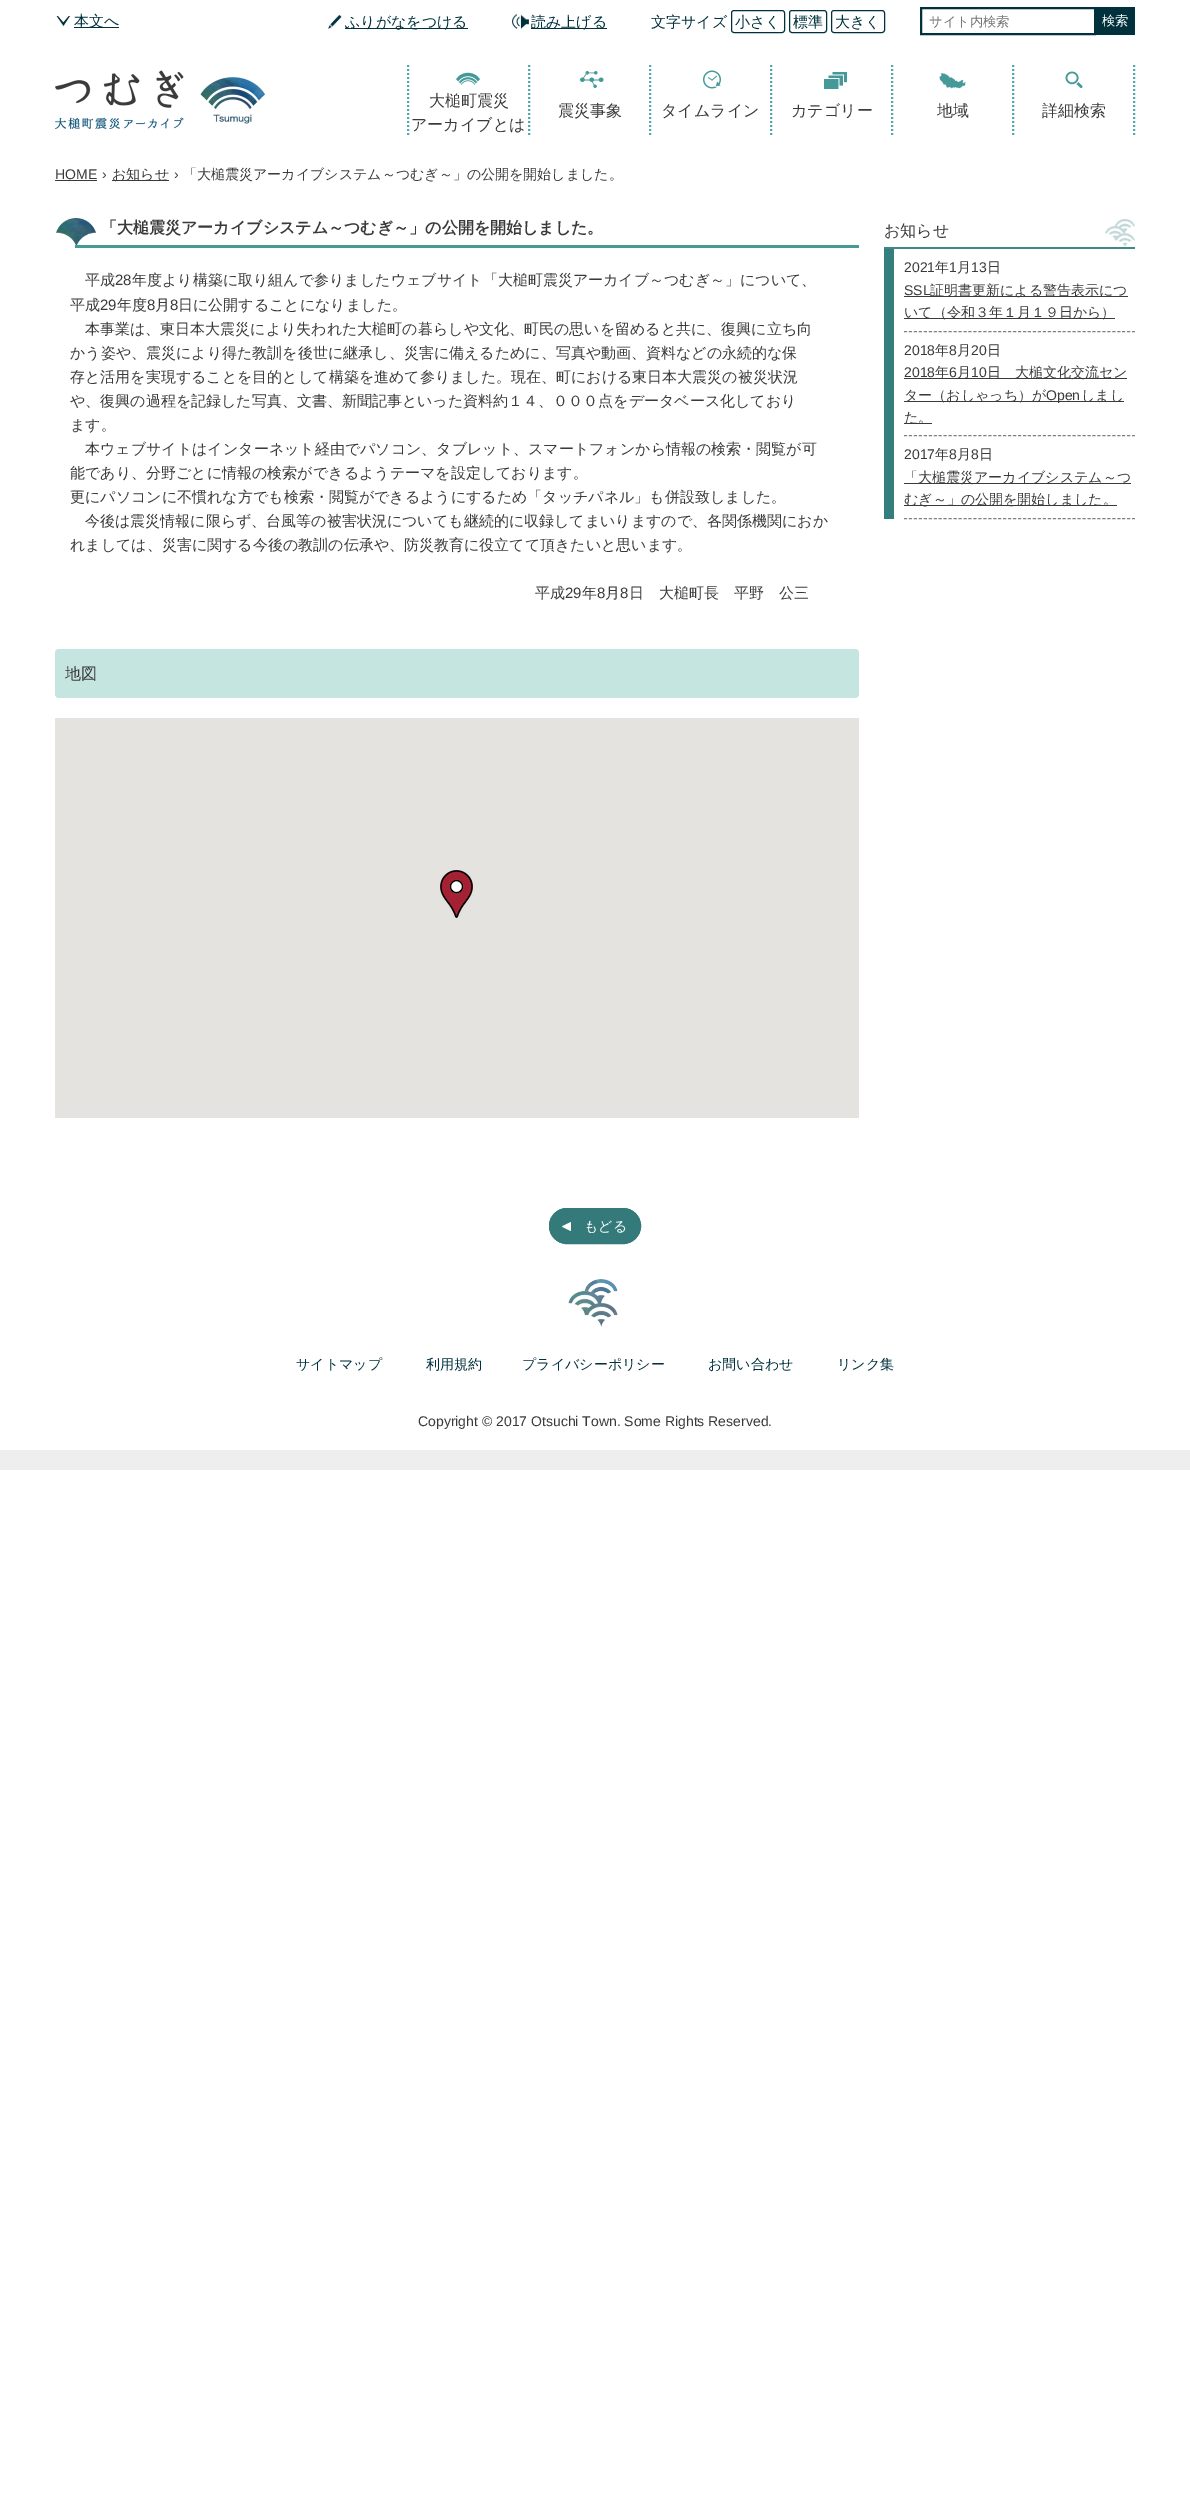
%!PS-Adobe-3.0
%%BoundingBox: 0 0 1190 2495
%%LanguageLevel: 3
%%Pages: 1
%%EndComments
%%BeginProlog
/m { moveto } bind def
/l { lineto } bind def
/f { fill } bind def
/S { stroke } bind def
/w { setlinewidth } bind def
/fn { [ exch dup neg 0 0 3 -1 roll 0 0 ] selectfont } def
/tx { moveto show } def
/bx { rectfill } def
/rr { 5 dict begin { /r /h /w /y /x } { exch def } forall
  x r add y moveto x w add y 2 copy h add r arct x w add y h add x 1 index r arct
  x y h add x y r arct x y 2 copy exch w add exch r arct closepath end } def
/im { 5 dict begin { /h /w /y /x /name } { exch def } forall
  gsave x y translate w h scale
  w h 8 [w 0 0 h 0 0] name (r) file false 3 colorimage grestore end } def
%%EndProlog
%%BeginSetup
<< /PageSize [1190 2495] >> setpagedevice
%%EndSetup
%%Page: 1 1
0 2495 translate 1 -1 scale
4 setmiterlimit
1 setgray
0 0 1190 2495 bx
(image0.raw) 56 15 14 11 im
0 0.192 0.235 setrgbcolor
74 27 45 1 bx
/WenQuanYiZenHei-Medium 15 fn
(本文へ) 74 26 tx
(image1.raw) 328 14 14 15 im
345 28 123 1 bx
(ふりがなをつける) 345 27 tx
(image2.raw) 512 14 17 15 im
531 28 76 1 bx
(読み上げる) 531 27 tx
(文字サイズ) 651 27 tx
731.5 10.5 53 22 2.5 rr S
(小さく) 735 27 tx
789.5 10.5 37 22 2.5 rr S
(標準) 793 27 tx
831.5 10.5 53 22 2.5 rr S
(大きく) 835 27 tx
2 w
921 8 174 26 rectstroke
/WenQuanYiZenHei-Medium 13.25 fn
0.459 setgray
(サイト内検索) 929 26 tx
0 0.192 0.235 setrgbcolor
1096 7 39 28 bx
1 setgray
(検索) 1102 25 tx
(image3.raw) 55 70 210 59 im
0.314 0.671 0.667 setrgbcolor
[2 2] 0 setdash
408 65 m 408 137 l S
(image4.raw) 456 72 24 13 im
/WenQuanYiZenHei-Medium 16 fn
0.227 setgray
(大槌町震災) 429 106 tx
(アーカイブとは) 411 130 tx
0.314 0.671 0.667 setrgbcolor
529 65 m 529 137 l S
(image5.raw) 580 71 24 17 im
0.227 setgray
(震災事象) 558 116 tx
0.314 0.671 0.667 setrgbcolor
650 65 m 650 137 l S
(image6.raw) 703 70 18 19 im
0.227 setgray
(タイムライン) 661 116 tx
0.314 0.671 0.667 setrgbcolor
771 65 m 771 137 l S
(image7.raw) 824 72 23 17 im
0.227 setgray
(カテゴリー) 791 116 tx
0.314 0.671 0.667 setrgbcolor
892 65 m 892 137 l S
(image8.raw) 939 73 27 16 im
0.227 setgray
(地域) 937 116 tx
0.314 0.671 0.667 setrgbcolor
1134 65 m 1134 137 l S
1013 65 m 1013 137 l S
(image9.raw) 1065 71 18 17 im
0.227 setgray
(詳細検索) 1042 116 tx
/LiberationSans-Regular 14 fn
(HOME) 55 179 tx
55 180 42 1 bx
(›) 102 179 tx
112 180 57 1 bx
/WenQuanYiZenHei-Medium 14 fn
(お知らせ) 112 179 tx
/LiberationSans-Regular 14 fn
(›) 174 179 tx
/WenQuanYiZenHei-Medium 14 fn
(「大槌震災アーカイブシステム～つむぎ～」の公開を開始しました。) 183 179 tx
0.275 0.6 0.6 setrgbcolor
75 245 784 3 bx
(image10.raw) 56 218 40 27 im
/WenQuanYiZenHei-Bold 16 fn
0.227 setgray
(「大槌震災アーカイブシステム～つむぎ～」の公開を開始しました。) 101 233 tx
/WenQuanYiZenHei-Medium 15 fn
(平成) 85 285 tx
/LiberationSans-Regular 15 fn
(28) 115 285 tx
/WenQuanYiZenHei-Medium 15 fn
(年度より構築に取り組んで参りましたウェブサイト「大槌町震災アーカイブ～つむぎ～」について、) 132 285 tx
(平成) 70 310 tx
/LiberationSans-Regular 15 fn
(29) 100 310 tx
/WenQuanYiZenHei-Medium 15 fn
(年度) 117 310 tx
/LiberationSans-Regular 15 fn
(8) 147 310 tx
/WenQuanYiZenHei-Medium 15 fn
(月) 155 310 tx
/LiberationSans-Regular 15 fn
(8) 170 310 tx
/WenQuanYiZenHei-Medium 15 fn
(日に公開することになりました。) 178 310 tx
(本事業は、東日本大震災により失われた大槌町の暮らしや文化、町民の思いを留めると共に、復興に立ち向) 85 334 tx
(かう姿や、震災により得た教訓を後世に継承し、災害に備えるために、写真や動画、資料などの永続的な保) 70 358 tx
(存と活用を実現することを目的として構築を進めて参りました。現在、町における東日本大震災の被災状況) 70 382 tx
(や、復興の過程を記録した写真、文書、新聞記事といった資料約１４、０００点をデータベース化しており) 70 406 tx
(ます。) 70 430 tx
(本ウェブサイトはインターネット経由でパソコン、タブレット、スマートフォンから情報の検索・閲覧が可) 85 454 tx
(能であり、分野ごとに情報の検索ができるようテーマを設定しております。) 70 478 tx
(更にパソコンに不慣れな方でも検索・閲覧ができるようにするため「タッチパネル」も併設致しました。) 70 502 tx
(今後は震災情報に限らず、台風等の被害状況についても継続的に収録してまいりますので、各関係機関におか) 85 526 tx
(れましては、災害に関する今後の教訓の伝承や、防災教育に役立てて頂きたいと思います。) 70 550 tx
(平成) 535 598 tx
/LiberationSans-Regular 15 fn
(29) 565 598 tx
/WenQuanYiZenHei-Medium 15 fn
(年) 582 598 tx
/LiberationSans-Regular 15 fn
(8) 597 598 tx
/WenQuanYiZenHei-Medium 15 fn
(月) 605 598 tx
/LiberationSans-Regular 15 fn
(8) 620 598 tx
/WenQuanYiZenHei-Medium 15 fn
(日　大槌町長　平野　公三) 629 598 tx
0.773 0.898 0.882 setrgbcolor
55 649 804 49 4 rr f
/WenQuanYiZenHei-Medium 16 fn
0.227 setgray
(地図) 65 679 tx
0.898 0.89 0.875 setrgbcolor
55 718 804 400 bx
(image11.raw) 440 870 33 48 im
(image12.raw) 1105 219 30 28 im
0.259 0.529 0.529 setrgbcolor
884 247 251 2 bx
0.227 setgray
(お知らせ) 884 236 tx
0.208 0.494 0.494 setrgbcolor
884 249 10 270 bx
0.502 setgray
1 w
[3 1.96] 0 setdash
904 331.5 m 1135 331.5 l S
/LiberationSans-Regular 14 fn
0.227 setgray
(2021) 904 272 tx
/WenQuanYiZenHei-Medium 14 fn
(年) 935 272 tx
/LiberationSans-Regular 14 fn
(1) 949 272 tx
/WenQuanYiZenHei-Medium 14 fn
(月) 957 272 tx
/LiberationSans-Regular 14 fn
(13) 971 272 tx
/WenQuanYiZenHei-Medium 14 fn
(日) 987 272 tx
/LiberationSans-Regular 14 fn
(SSL) 904 295 tx
904 296 224 1 bx
/WenQuanYiZenHei-Medium 14 fn
(証明書更新による警告表示につ) 930 295 tx
904 318 211 1 bx
(いて（令和３年１月１９日から）) 904 317 tx
0.502 setgray
904 435.5 m 1135 435.5 l S
/LiberationSans-Regular 14 fn
0.227 setgray
(2018) 904 355 tx
/WenQuanYiZenHei-Medium 14 fn
(年) 935 355 tx
/LiberationSans-Regular 14 fn
(8) 949 355 tx
/WenQuanYiZenHei-Medium 14 fn
(月) 957 355 tx
/LiberationSans-Regular 14 fn
(20) 971 355 tx
/WenQuanYiZenHei-Medium 14 fn
(日) 987 355 tx
/LiberationSans-Regular 14 fn
(2018) 904 377 tx
904 378 223 1 bx
/WenQuanYiZenHei-Medium 14 fn
(年) 935 377 tx
/LiberationSans-Regular 14 fn
(6) 949 377 tx
/WenQuanYiZenHei-Medium 14 fn
(月) 957 377 tx
/LiberationSans-Regular 14 fn
(10) 971 377 tx
/WenQuanYiZenHei-Medium 14 fn
(日　大槌文化交流セン) 987 377 tx
904 401 220 1 bx
(ター（おしゃっち）が) 904 400 tx
/LiberationSans-Regular 14 fn
(Open) 1046 400 tx
/WenQuanYiZenHei-Medium 14 fn
(しまし) 1081 400 tx
904 423 28 1 bx
(た。) 904 422 tx
0.502 setgray
904 518.5 m 1135 518.5 l S
/LiberationSans-Regular 14 fn
0.227 setgray
(2017) 904 459 tx
/WenQuanYiZenHei-Medium 14 fn
(年) 935 459 tx
/LiberationSans-Regular 14 fn
(8) 949 459 tx
/WenQuanYiZenHei-Medium 14 fn
(月) 957 459 tx
/LiberationSans-Regular 14 fn
(8) 971 459 tx
/WenQuanYiZenHei-Medium 14 fn
(日) 979 459 tx
904 483 227 1 bx
(「大槌震災アーカイブシステム～つ) 904 482 tx
904 505 213 1 bx
(むぎ～」の公開を開始しました。) 904 504 tx
0.204 0.478 0.478 setrgbcolor
549 1208 92 36 18 rr f
(image13.raw) 550 1216 21 21 im
[] 0 setdash
549.5 1208.5 91 35 17.5 rr S
1 setgray
(もどる) 584 1231 tx
(image14.raw) 568 1279 50 48 im
0 0.192 0.235 setrgbcolor
(サイトマップ) 296 1369 tx
(利用規約) 426 1369 tx
(プライバシーポリシー) 522 1369 tx
(お問い合わせ) 708 1369 tx
(リンク集) 837 1369 tx
0.933 setgray
0 1450 1190 20 bx
/LiberationSans-Regular 14 fn
0.227 setgray
(Copyright © 2017 Otsuchi Town. Some Rights Reserved.) 418 1426 tx
showpage
%%EOF
